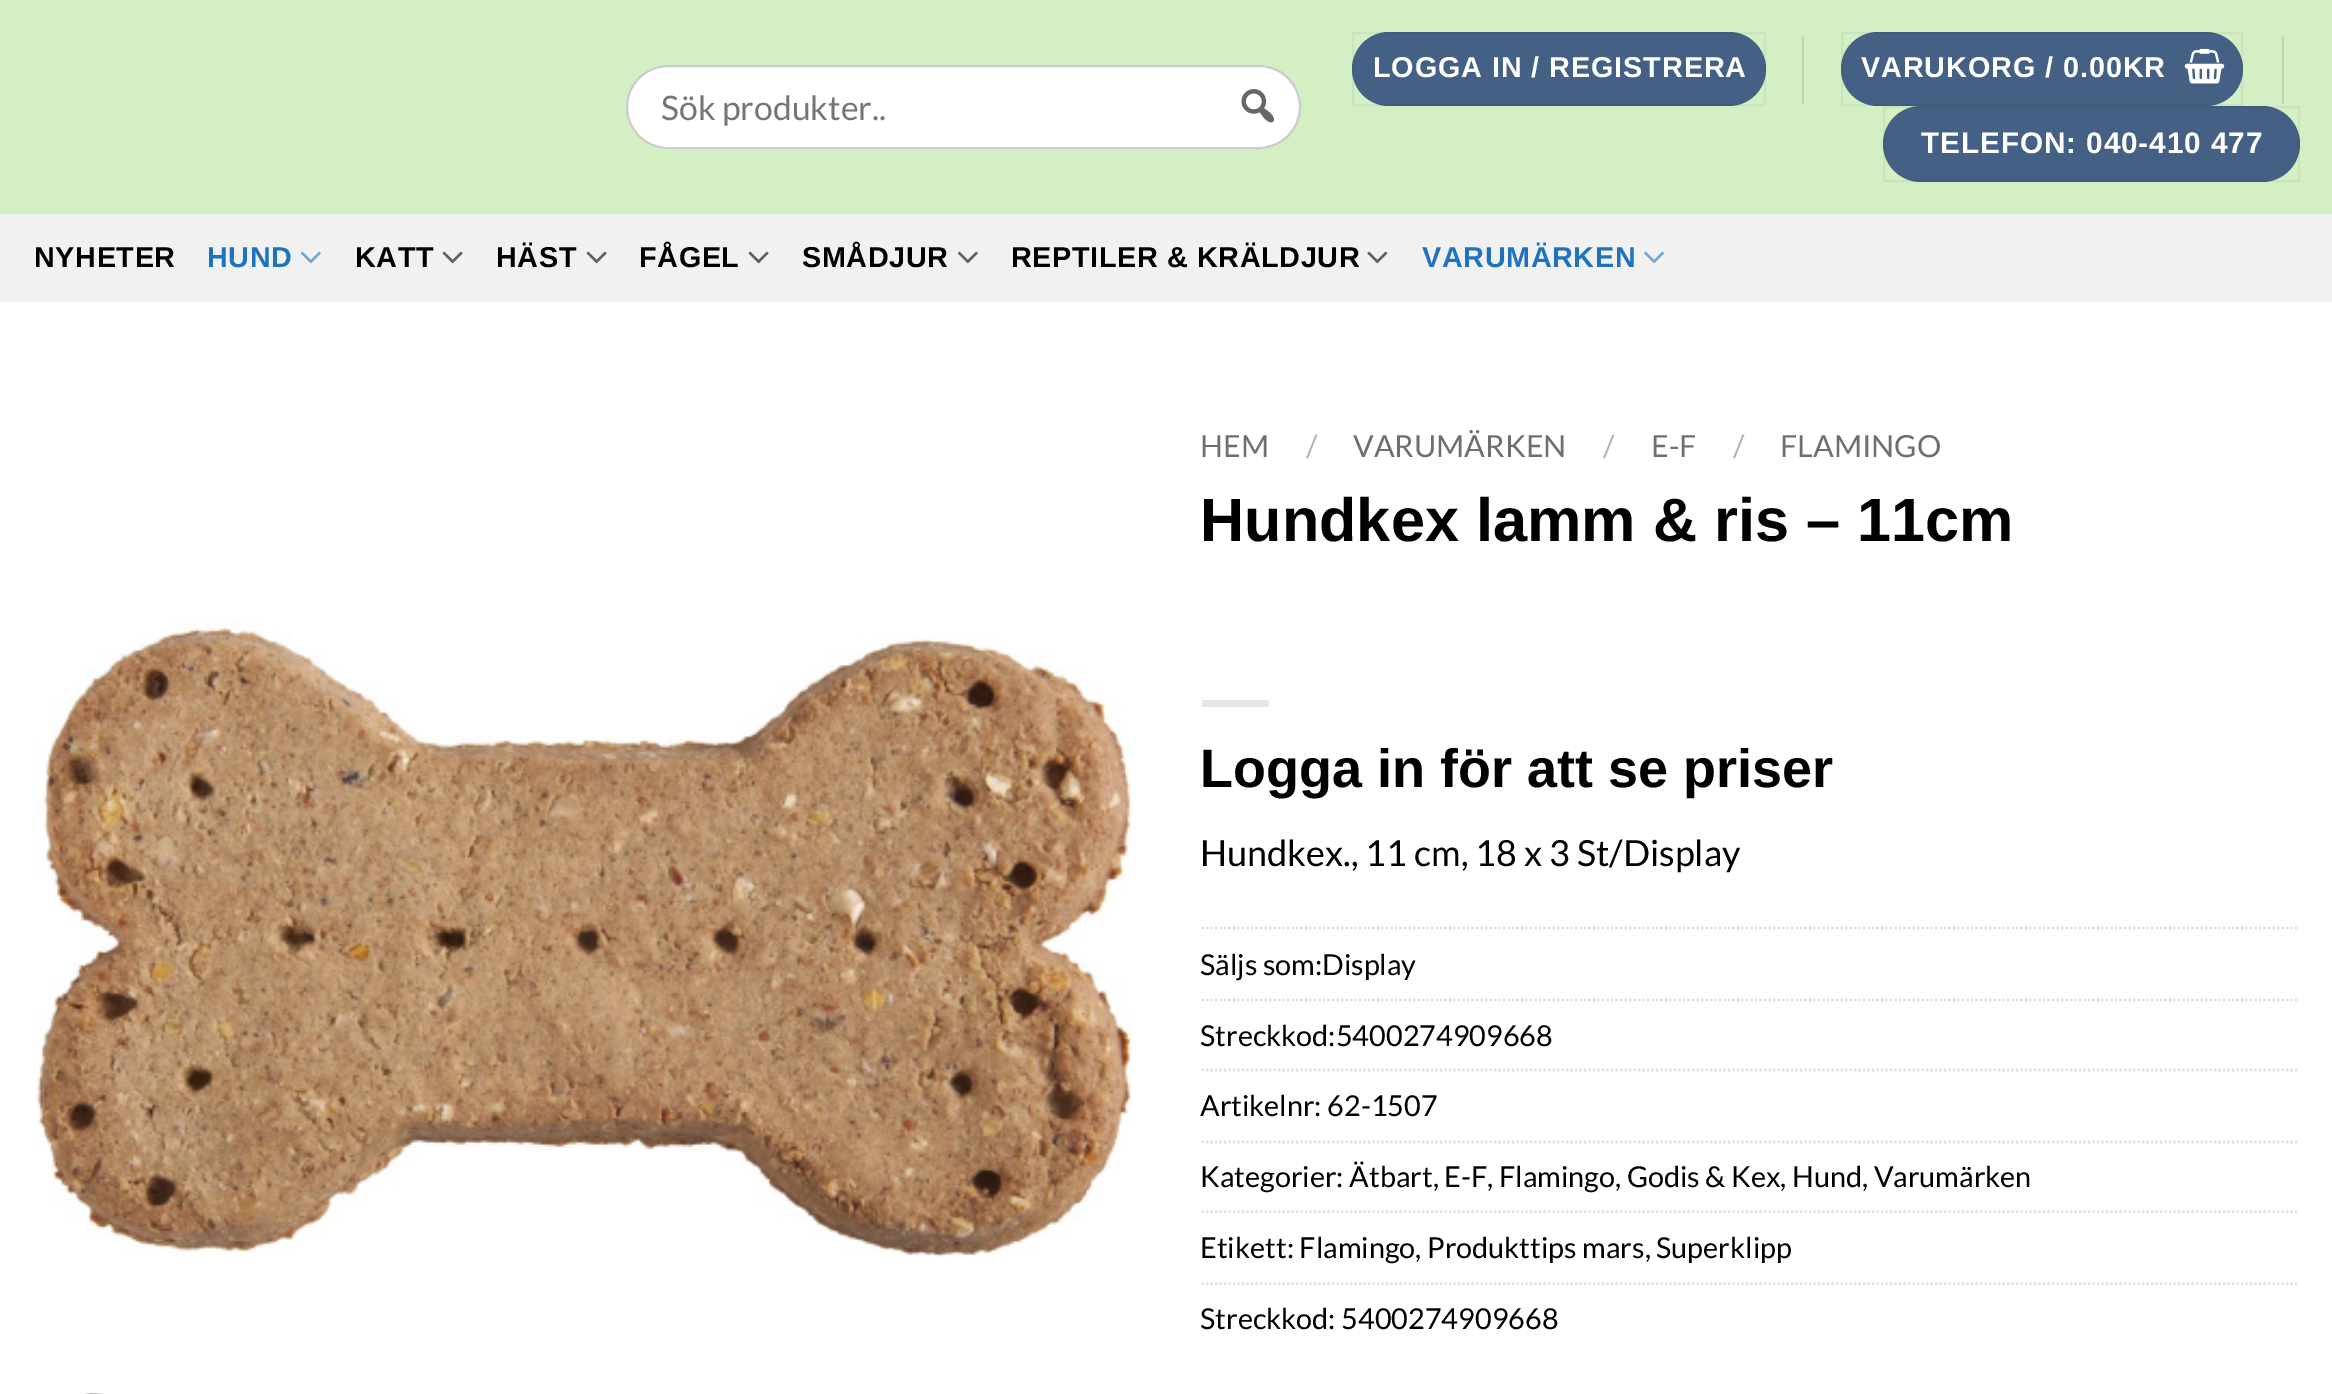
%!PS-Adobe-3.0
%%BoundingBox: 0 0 2332 1394
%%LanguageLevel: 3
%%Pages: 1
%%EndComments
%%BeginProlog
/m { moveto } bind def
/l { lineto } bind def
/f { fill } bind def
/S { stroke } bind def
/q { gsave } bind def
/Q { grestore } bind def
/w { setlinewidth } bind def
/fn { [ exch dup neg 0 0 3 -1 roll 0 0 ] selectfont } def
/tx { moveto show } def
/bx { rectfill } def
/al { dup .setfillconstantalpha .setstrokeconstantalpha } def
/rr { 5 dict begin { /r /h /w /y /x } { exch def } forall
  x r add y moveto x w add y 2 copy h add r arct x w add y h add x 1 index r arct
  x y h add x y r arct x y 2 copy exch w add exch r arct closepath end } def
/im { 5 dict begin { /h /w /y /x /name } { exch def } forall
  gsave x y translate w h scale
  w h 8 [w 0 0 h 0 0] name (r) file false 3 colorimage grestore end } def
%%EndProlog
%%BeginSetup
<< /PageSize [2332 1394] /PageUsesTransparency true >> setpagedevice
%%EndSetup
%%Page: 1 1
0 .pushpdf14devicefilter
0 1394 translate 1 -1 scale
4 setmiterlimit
1 setgray
0 0 2332 1394 bx
0.835 0.937 0.769 setrgbcolor
0 0 2332 214 bx
1 setgray
627 66 673 82 41 rr q f Q
0.8 setgray
2 w
S
/Lato-Regular 33.75 fn
0.459 setgray
(Sök produkter..) 661 120 tx
(image0.raw) 1241 89 33 34 im
0.267 0.376 0.518 setrgbcolor
1352 32 414 74 37 rr f
0.05 al
0 setgray
1353 33 412 72 rectstroke
/LiberationSans-Bold 28.8 fn
1 al
1 setgray
1373 77 m 0.9 0 (LOGGA IN / REGISTRERA) ashow
0.753 0.843 0.69 setrgbcolor
1802 36 2 68 bx
0.267 0.376 0.518 setrgbcolor
1841 32 402 74 37 rr f
0.05 al
0 setgray
1842 33 400 72 rectstroke
1 al
1 setgray
1861 77 m 0.9 0 (VARUKORG / 0.00KR) ashow
(image1.raw) 2184 48 41 36 im
0.753 0.843 0.69 setrgbcolor
2282 36 2 68 bx
0.267 0.376 0.518 setrgbcolor
1883 106 417 76 38 rr f
0.05 al
0 setgray
1884 107 415 74 rectstroke
/LiberationSans-Bold 29.75 fn
1 al
1 setgray
1921 153 m 0.9 0 (TELEFON: 040-410 477) ashow
0.945 setgray
0 214 2332 88 bx
/LiberationSans-Bold 28.8 fn
0 setgray
34 267 m 0.6 0 (NYHETER) ashow
0.118 0.451 0.745 setrgbcolor
207 267 m 0.6 0 (HUND) ashow
(image2.raw) 300 251 21 13 im
0 setgray
355 267 m 0.6 0 (KATT) ashow
(image3.raw) 442 251 21 13 im
496 267 m 0.6 0 (HÄST) ashow
(image3.raw) 586 251 21 13 im
639 267 m 0.6 0 (FÅGEL) ashow
(image3.raw) 748 251 21 13 im
802 267 m 0.6 0 (SMÅDJUR) ashow
(image4.raw) 957 251 21 13 im
1011 267 m 0.6 0 (REPTILER & KRÄLDJUR) ashow
(image5.raw) 1367 251 21 13 im
0.118 0.451 0.745 setrgbcolor
1422 267 m 0.6 0 (VARUMÄRKEN) ashow
(image6.raw) 1644 251 20 13 im
(image7.raw) 34 619 1100 639 im
0.753 setgray
5 w
52.5 1395.5 82 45 41 rr S
/Lato-Regular 30.5 fn
0.431 setgray
(HEM) 1200 457 tx
0.698 setgray
(/) 1306 457 tx
0.431 setgray
(VARUMÄRKEN) 1353 457 tx
0.698 setgray
(/) 1603 457 tx
0.431 setgray
(E-F) 1651 457 tx
0.698 setgray
(/) 1733 457 tx
0.431 setgray
(FLAMINGO) 1780 457 tx
/LiberationSans-Bold 61.25 fn
0 setgray
(Hundkex lamm & ris – 11cm) 1200 541 tx
0.902 setgray
1202 700 67 7 bx
/LiberationSans-Bold 54 fn
0 setgray
(Logga in för att se priser) 1200 787 tx
/Lato-Regular 36 fn
(Hundkex., 11 cm, 18 x 3 St/Display) 1200 866 tx
0.867 setgray
2.2 w
[2.25 2.25] 0 setdash
1201.5 928 m 2299.5 928 l S
/Lato-Regular 28.8 fn
0 setgray
(Säljs som:Display) 1200 975 tx
0.867 setgray
1201.5 1000 m 2299.5 1000 l S
0 setgray
(Streckkod:5400274909668) 1200 1046 tx
0.867 setgray
1201.5 1070 m 2299.5 1070 l S
0 setgray
(Artikelnr: 62-1507) 1200 1116 tx
0.867 setgray
1201.5 1142 m 2299.5 1142 l S
0 setgray
(Kategorier: Ätbart, E-F, Flamingo, Godis & Kex, Hund, Varumärken) 1200 1187 tx
0.867 setgray
1201.5 1211.5 m 2299.5 1211.5 l S
0 setgray
(Etikett: Flamingo, Produkttips mars, Superklipp) 1200 1258 tx
0.867 setgray
1201.5 1283.5 m 2299.5 1283.5 l S
0 setgray
(Streckkod: 5400274909668) 1200 1329 tx
.poppdf14devicefilter showpage
%%EOF
